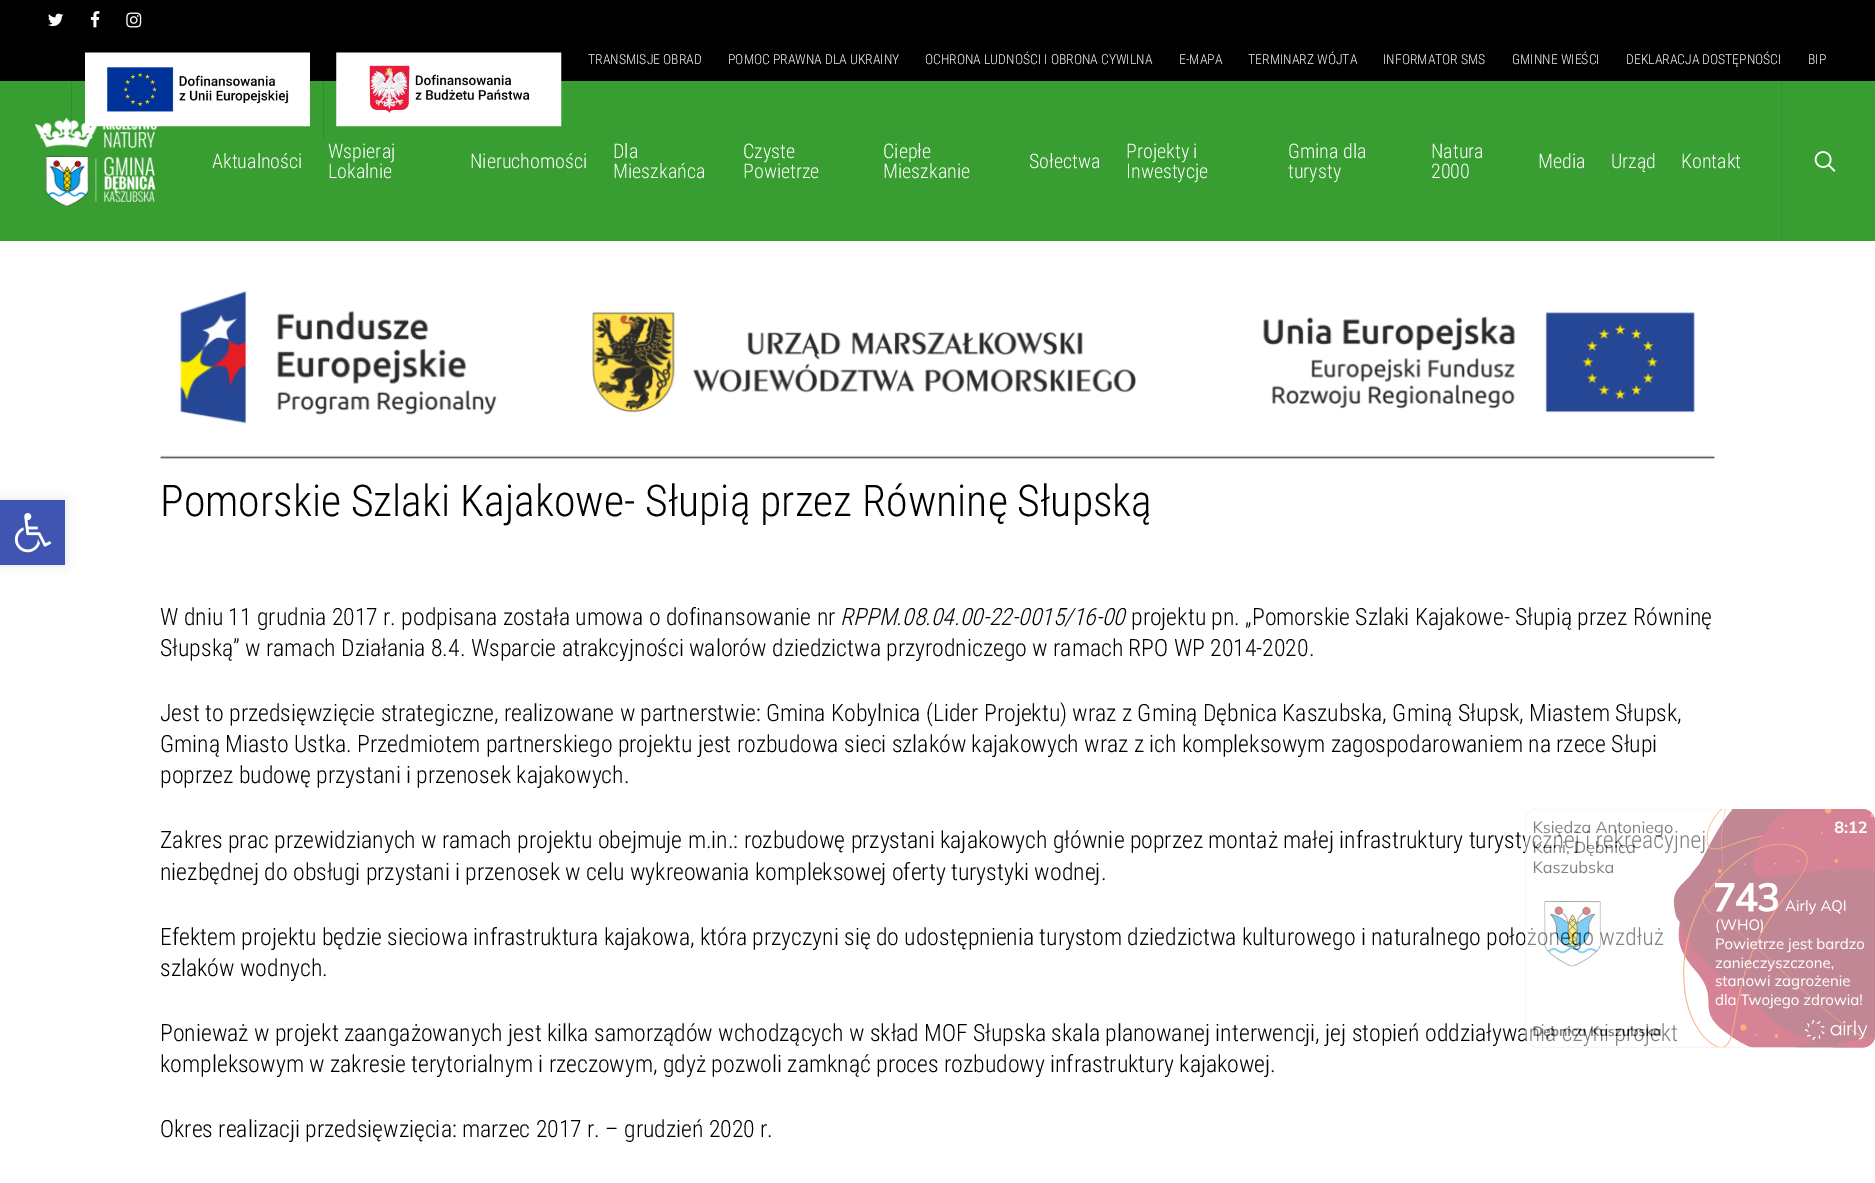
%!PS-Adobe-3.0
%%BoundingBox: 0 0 1875 1183
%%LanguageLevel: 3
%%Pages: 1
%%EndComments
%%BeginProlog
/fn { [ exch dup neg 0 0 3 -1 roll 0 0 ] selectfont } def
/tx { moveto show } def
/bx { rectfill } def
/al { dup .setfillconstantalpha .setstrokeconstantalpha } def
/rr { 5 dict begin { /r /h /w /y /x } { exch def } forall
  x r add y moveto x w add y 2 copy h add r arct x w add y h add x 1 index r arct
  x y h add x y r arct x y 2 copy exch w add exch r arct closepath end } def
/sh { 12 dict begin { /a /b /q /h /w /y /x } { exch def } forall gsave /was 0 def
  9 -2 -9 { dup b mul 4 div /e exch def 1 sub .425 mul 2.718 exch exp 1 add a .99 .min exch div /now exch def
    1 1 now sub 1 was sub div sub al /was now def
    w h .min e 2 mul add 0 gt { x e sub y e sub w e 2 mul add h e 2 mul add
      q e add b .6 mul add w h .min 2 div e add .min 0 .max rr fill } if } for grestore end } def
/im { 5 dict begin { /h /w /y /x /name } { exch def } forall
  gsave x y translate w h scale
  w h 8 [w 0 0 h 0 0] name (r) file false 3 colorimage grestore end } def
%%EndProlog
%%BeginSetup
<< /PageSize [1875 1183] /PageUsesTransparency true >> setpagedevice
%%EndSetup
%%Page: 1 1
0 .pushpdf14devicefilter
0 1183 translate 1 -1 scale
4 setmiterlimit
1 setgray
0 0 1875 1183 bx
0.22 0.62 0.192 setrgbcolor
0 81 1875 160 bx
0.196 0.557 0.173 setrgbcolor
323 81 1 60 bx
0 setgray
0 0 1875 81 bx
(image0.raw) 48 13 16 14 im
(image1.raw) 90 11 10 17 im
(image2.raw) 126 12 16 16 im
(image5.raw) 35 117 122 90 im
0.1 al
71 81 1 60 bx
1 al
(image3.raw) 85 52 225 75 im
(image4.raw) 336 52 226 75 im
/RobotoCondensed-Light 13.75 fn
1 setgray
(TRANSMISJE OBRAD) 588 64 tx
(POMOC PRAWNA DLA UKRAINY) 728 64 tx
(OCHRONA LUDNOŚCI I OBRONA CYWILNA) 925 64 tx
(E-MAPA) 1179 64 tx
(TERMINARZ WÓJTA) 1248 64 tx
(INFORMATOR SMS) 1383 64 tx
(GMINNE WIEŚCI) 1512 64 tx
(DEKLARACJA DOSTĘPNOŚCI) 1626 64 tx
(BIP) 1808 64 tx
/RobotoCondensed-Light 20 fn
(Aktualności) 212 168 tx
(Wspieraj) 328 158 tx
(Lokalnie) 328 178 tx
(Nieruchomości) 470 168 tx
(Dla) 613 158 tx
(Mieszkańca) 613 178 tx
(Czyste) 743 158 tx
(Powietrze) 743 178 tx
(Ciepłe) 883 158 tx
(Mieszkanie) 883 178 tx
(Sołectwa) 1029 168 tx
(Projekty i) 1126 158 tx
(Inwestycje) 1126 178 tx
(Gmina dla) 1288 158 tx
(turysty) 1288 178 tx
(Natura) 1431 158 tx
(2000) 1431 178 tx
(Media) 1538 168 tx
(Urząd) 1611 168 tx
(Kontakt) 1681 168 tx
0.204 0.576 0.18 setrgbcolor
1781 81 1 160 bx
(image6.raw) 1814 151 22 21 im
0 setgray
0 500 65 65 0 6 0.1 sh
0.251 0.329 0.698 setrgbcolor
0 500 65 65 bx
(image7.raw) 14 513 38 40 im
(image8.raw) 160 291 1555 168 im
/RobotoCondensed-Light 43.75 fn
0 setgray
(Pomorskie Szlaki Kajakowe- Słupią przez Równinę Słupską) 160 516 tx
/RobotoCondensed-Light 23.75 fn
(W dniu 11 grudnia 2017 r. podpisana została umowa o dofinansowanie nr) 160 625 tx
/RobotoCondensed-LightItalic 23.75 fn
(RPPM.08.04.00-22-0015/16-00) 840 625 tx
/RobotoCondensed-Light 23.75 fn
(projektu pn. „Pomorskie Szlaki Kajakowe- Słupią przez Równinę) 1131 625 tx
(Słupską” w ramach Działania 8.4. Wsparcie atrakcyjności walorów dziedzictwa przyrodniczego w ramach RPO WP 2014-2020.) 160 656 tx
(Jest to przedsięwzięcie strategiczne, realizowane w partnerstwie: Gmina Kobylnica \(Lider Projektu\) wraz z Gminą Dębnica Kaszubska, Gminą Słupsk, Miastem Słupsk,) 160 721 tx
(Gminą Miasto Ustka. Przedmiotem partnerskiego projektu jest rozbudowa sieci szlaków kajakowych wraz z ich kompleksowym zagospodarowaniem na rzece Słupi) 160 752 tx
(poprzez budowę przystani i przenosek kajakowych.) 160 783 tx
(Zakres prac przewidzianych w ramach projektu obejmuje m.in.: rozbudowę przystani kajakowych głównie poprzez montaż małej infrastruktury turystycznej i rekreacyjnej) 160 848 tx
(niezbędnej do obsługi przystani i przenosek w celu wykreowania kompleksowej oferty turystyki wodnej.) 160 880 tx
(Efektem projektu będzie sieciowa infrastruktura kajakowa, która przyczyni się do udostępnienia turystom dziedzictwa kulturowego i naturalnego położonego wzdłuż) 160 945 tx
(szlaków wodnych.) 160 976 tx
(Ponieważ w projekt zaangażowanych jest kilka samorządów wchodzących w skład MOF Słupska skala planowanej interwencji, jej stopień oddziaływania czyni projekt) 160 1041 tx
(kompleksowym w zakresie terytorialnym i rzeczowym, gdyż pozwoli zamknąć proces rozbudowy infrastruktury kajakowej.) 160 1072 tx
(Okres realizacji przedsięwzięcia: marzec 2017 r. – grudzień 2020 r.) 160 1137 tx
(image9.raw) 1525 809 350 239 im
.poppdf14devicefilter showpage
%%EOF
